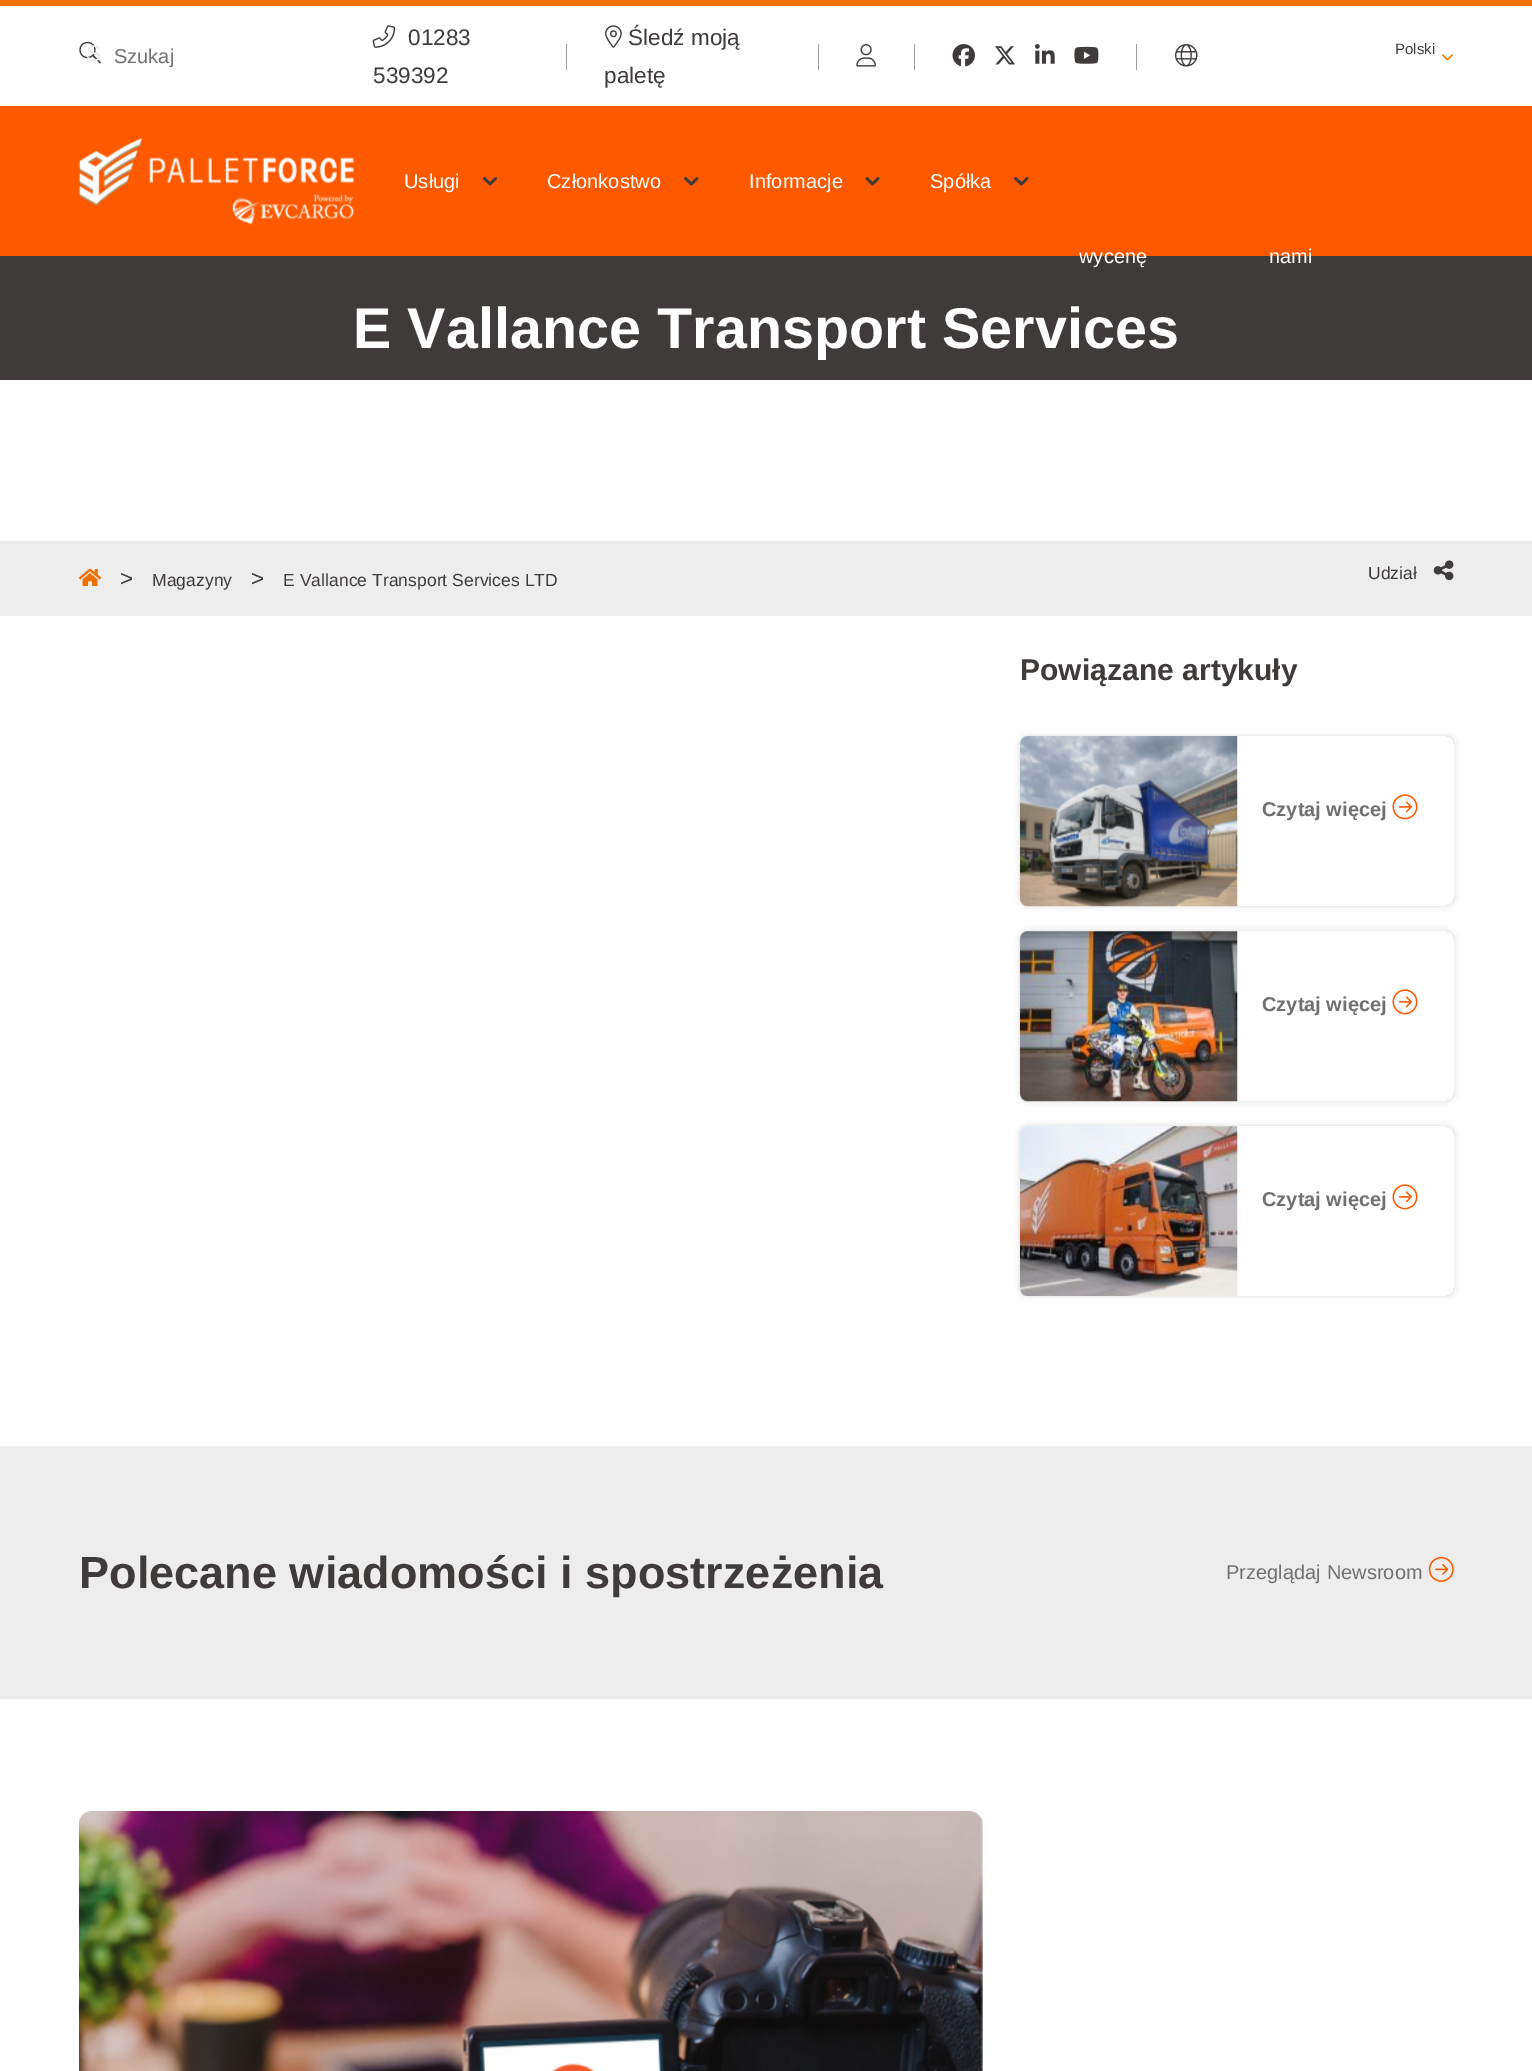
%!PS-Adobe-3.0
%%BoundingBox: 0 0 1532 2071
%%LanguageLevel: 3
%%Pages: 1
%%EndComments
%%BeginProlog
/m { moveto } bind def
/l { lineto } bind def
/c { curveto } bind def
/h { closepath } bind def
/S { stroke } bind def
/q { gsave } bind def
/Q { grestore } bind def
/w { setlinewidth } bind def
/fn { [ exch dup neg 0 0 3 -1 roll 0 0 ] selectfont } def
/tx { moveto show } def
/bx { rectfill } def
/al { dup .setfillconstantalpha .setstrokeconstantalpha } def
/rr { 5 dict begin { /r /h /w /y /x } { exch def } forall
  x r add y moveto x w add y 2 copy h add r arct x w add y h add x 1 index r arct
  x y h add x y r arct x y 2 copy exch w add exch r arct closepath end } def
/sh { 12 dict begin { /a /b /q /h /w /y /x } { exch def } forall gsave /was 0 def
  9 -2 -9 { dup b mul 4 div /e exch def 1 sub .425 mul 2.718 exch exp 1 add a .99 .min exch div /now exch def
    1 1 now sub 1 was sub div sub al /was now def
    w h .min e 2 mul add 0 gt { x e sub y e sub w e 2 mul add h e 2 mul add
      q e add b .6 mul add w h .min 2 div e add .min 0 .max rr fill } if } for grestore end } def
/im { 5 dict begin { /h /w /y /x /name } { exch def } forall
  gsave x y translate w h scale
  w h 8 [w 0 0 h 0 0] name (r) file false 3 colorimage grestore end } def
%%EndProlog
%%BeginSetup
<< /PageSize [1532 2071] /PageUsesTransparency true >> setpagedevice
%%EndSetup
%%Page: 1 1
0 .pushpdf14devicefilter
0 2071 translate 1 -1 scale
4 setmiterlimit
1 setgray
0 0 1532 2071 bx
0.933 0.447 0.012 setrgbcolor
0 0 1532 6 bx
0.247 0.231 0.227 setrgbcolor
1.1 w
87.5 57.5 m 97.5 57.5 97.5 42.5 87.5 42.5 c 77.5 42.5 77.5 57.5 87.5 57.5 c h 93 55.5 m 100.5 63 l S
/LiberationSans-Regular 22.5 fn
0.925 setgray
(S) 86 61 tx
/LiberationSans-Regular 20 fn
0.439 setgray
(Szukaj) 114 63 tx
(image0.raw) 372 25 24 23 im
/LiberationSans-Regular 22.5 fn
0.247 0.231 0.227 setrgbcolor
408 45 m 0.05 0 (01283) ashow
373 83 m 0.05 0 (539392) ashow
0.624 0.616 0.616 setrgbcolor
566 44 1 26 bx
(image1.raw) 605 25 17 23 im
0.247 0.231 0.227 setrgbcolor
628 45 m 0.05 0 (Śledź moją) ashow
604 83 m 0.05 0 (paletę) ashow
0.624 0.616 0.616 setrgbcolor
818 44 1 26 bx
(image2.raw) 856 44 20 23 im
914 44 1 26 bx
(image3.raw) 952 44 23 23 im
(image4.raw) 995 46 20 19 im
(image5.raw) 1035 44 20 20 im
(image6.raw) 1074 46 25 18 im
1136 44 1 26 bx
(image7.raw) 1175 44 23 23 im
/LiberationSans-Regular 15 fn
0.247 0.231 0.227 setrgbcolor
1395 54 m 0.05 0 (Polski) ashow
(image8.raw) 1442 54 11 7 im
1 0.349 0 setrgbcolor
0 106 1532 150 bx
(image9.raw) 78 138 276 87 im
/LiberationSans-Regular 20 fn
1 setgray
404 188 m 0.05 0 (Usługi) ashow
0.247 0.231 0.227 setrgbcolor
2.8 w
1 setlinecap
1 setlinejoin
484.5 178.5 m 490 184 l 495.5 178.5 l S
1 setgray
547 188 m 0.05 0 (Członkostwo) ashow
0.247 0.231 0.227 setrgbcolor
685.5 178.5 m 691.5 184 l 697 178.5 l S
1 setgray
749 188 m 0.05 0 (Informacje) ashow
0.247 0.231 0.227 setrgbcolor
867 178.5 m 872.5 184 l 878 178.5 l S
1 setgray
930 188 m 0.05 0 (Spółka) ashow
0.247 0.231 0.227 setrgbcolor
1015.5 178.5 m 1021.5 184 l 1027 178.5 l S
0 256 1532 124 bx
1 setgray
1079 263 m 0.05 0 (wycenę) ashow
1269 263 m 0.05 0 (nami) ashow
/LiberationSans-Bold 57.5 fn
353 348 m 0.05 0 (E Vallance Transport Services) ashow
0.929 setgray
0 541 1532 75 bx
(image10.raw) 79 569 22 17 im
/LiberationSans-Regular 22.5 fn
0.247 0.231 0.227 setrgbcolor
120 586 m 0.05 0 (>) ashow
/LiberationSans-Regular 17.5 fn
152 586 m 0.05 0 (Magazyny) ashow
/LiberationSans-Regular 22.5 fn
251 586 m 0.05 0 (>) ashow
/LiberationSans-Regular 17.5 fn
283 586 m 0.05 0 (E Vallance Transport Services LTD) ashow
1368 579 m 0.05 0 (Udział) ashow
(image11.raw) 1433 560 21 21 im
/LiberationSans-Bold 30 fn
1020 680 m 0.05 0 (Powiązane artykuły) ashow
q
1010 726 m 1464 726 l 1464 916 l 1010 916 l h 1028 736 m 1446 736 l 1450.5 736 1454 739.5 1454 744 c 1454 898 l 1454 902.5 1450.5 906 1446 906 c 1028 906 l 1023.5 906 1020 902.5 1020 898 c 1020 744 l 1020 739.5 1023.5 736 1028 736 c h eoclip newpath
0 setgray
1020 736 434 170 8 3 0.15 sh
Q
(image12.raw) 1020 736 218 171 im
/LiberationSans-Bold 20 fn
0.439 setgray
(Czytaj więcej) 1262 816 tx
(image13.raw) 1392 794 26 26 im
q
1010 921 m 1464 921 l 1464 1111 l 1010 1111 l h 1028 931 m 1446 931 l 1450.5 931 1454 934.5 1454 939 c 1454 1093 l 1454 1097.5 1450.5 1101 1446 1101 c 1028 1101 l 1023.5 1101 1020 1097.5 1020 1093 c 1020 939 l 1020 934.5 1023.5 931 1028 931 c h eoclip newpath
0 setgray
1020 931 434 170 8 3 0.15 sh
Q
(image14.raw) 1020 931 218 171 im
(Czytaj więcej) 1262 1011 tx
(image13.raw) 1392 989 26 26 im
q
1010 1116 m 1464 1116 l 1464 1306 l 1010 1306 l h 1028 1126 m 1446 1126 l 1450.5 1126 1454 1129.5 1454 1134 c 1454 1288 l 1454 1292.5 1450.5 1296 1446 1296 c 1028 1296 l 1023.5 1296 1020 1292.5 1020 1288 c 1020 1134 l 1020 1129.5 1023.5 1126 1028 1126 c h eoclip newpath
0 setgray
1020 1126 434 170 8 3 0.15 sh
Q
(image15.raw) 1020 1126 218 170 im
(Czytaj więcej) 1262 1206 tx
(image13.raw) 1392 1184 26 26 im
0.929 setgray
0 1446 1532 253 bx
/LiberationSans-Bold 45 fn
0.247 0.231 0.227 setrgbcolor
79 1588 m 0.05 0 (Polecane wiadomości i spostrzeżenia) ashow
/LiberationSans-Regular 20 fn
0.439 setgray
1226 1579 m 0.05 0 (Przeglądaj Newsroom) ashow
(image16.raw) 1428 1556 26 26 im
(image17.raw) 79 1811 904 260 im
.poppdf14devicefilter showpage
%%EOF
